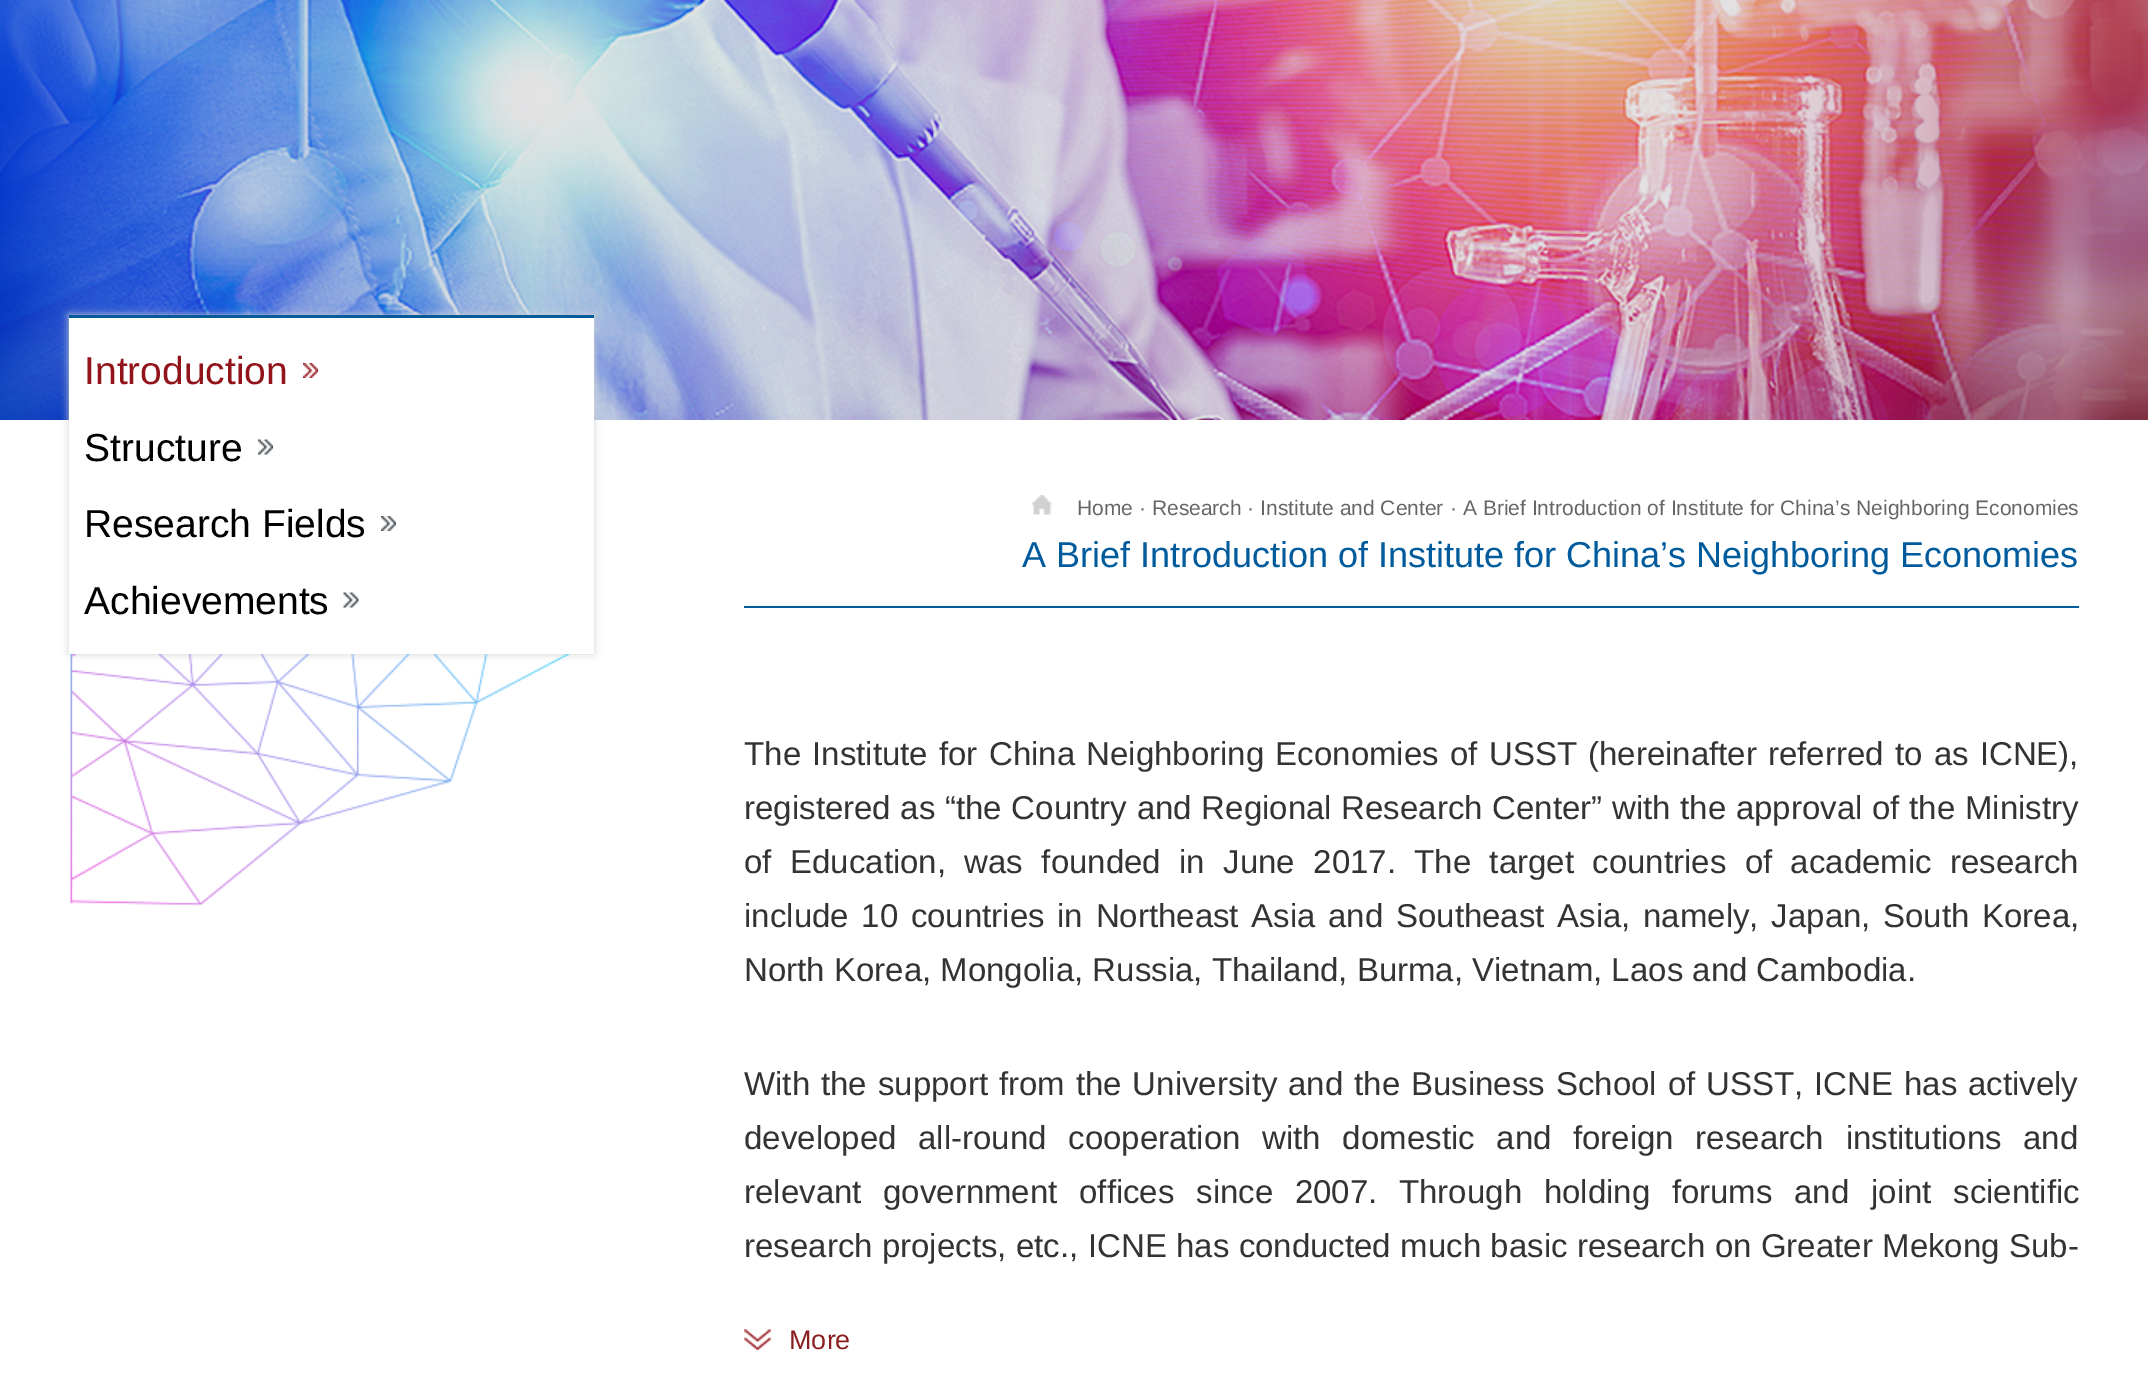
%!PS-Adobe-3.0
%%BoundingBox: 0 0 2148 1374
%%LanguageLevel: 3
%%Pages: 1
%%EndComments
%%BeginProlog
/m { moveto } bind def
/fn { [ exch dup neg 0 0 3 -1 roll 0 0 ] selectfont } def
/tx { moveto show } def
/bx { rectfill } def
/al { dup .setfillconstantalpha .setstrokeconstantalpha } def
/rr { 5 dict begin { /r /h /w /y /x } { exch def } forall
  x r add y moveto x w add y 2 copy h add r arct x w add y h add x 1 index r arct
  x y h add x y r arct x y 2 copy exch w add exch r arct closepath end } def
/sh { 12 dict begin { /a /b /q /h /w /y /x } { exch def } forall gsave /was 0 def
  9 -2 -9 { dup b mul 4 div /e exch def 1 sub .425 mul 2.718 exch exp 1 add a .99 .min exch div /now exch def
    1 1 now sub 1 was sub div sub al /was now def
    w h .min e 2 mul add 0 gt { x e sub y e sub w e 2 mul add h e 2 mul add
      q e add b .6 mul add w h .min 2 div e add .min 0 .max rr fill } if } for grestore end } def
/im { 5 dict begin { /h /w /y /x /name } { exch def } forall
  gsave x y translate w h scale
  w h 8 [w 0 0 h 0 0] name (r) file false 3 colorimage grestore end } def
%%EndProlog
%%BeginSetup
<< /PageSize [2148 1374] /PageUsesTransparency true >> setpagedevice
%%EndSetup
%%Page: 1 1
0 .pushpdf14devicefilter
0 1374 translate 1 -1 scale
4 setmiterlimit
1 setgray
0 0 2148 1374 bx
(image0.raw) 0 0 2148 420 im
0.82 0.824 0.827 setrgbcolor
69 315 525 339 0 4 1 sh
1 setgray
69 318 525 336 bx
0 0.357 0.616 setrgbcolor
69 315 525 3 bx
/LiberationSans-Regular 39 fn
0.573 0.078 0.102 setrgbcolor
(Introduction) 84 384 tx
(image1.raw) 303 363 15 15 im
0 setgray
(Structure) 84 461 tx
(image2.raw) 258 439 15 16 im
(Research Fields) 84 537 tx
(image3.raw) 381 516 15 15 im
(Achievements) 84 614 tx
(image4.raw) 343 592 16 16 im
(image5.raw) 69 654 502 252 im
0 0.357 0.616 setrgbcolor
744 606 1335 2 bx
(image6.raw) 1032 495 20 20 im
/LiberationSans-Regular 21 fn
0.4 setgray
(Home · Research · Institute and Center) 1077 515 tx
(· A Brief Introduction of Institute for China’s Neighboring Economies) 1450 515 tx
/LiberationSans-Regular 36 fn
0 0.357 0.616 setrgbcolor
(A Brief Introduction of Institute for China’s Neighboring Economies) 1022 567 tx
/LiberationSans-Regular 33 fn
0.2 setgray
744 765 m 2.1 0 32 (The Institute for China Neighboring Economies of USST \(hereinafter referred to as ICNE\),) widthshow
744 819 m 0.5 0 32 (registered as “the Country and Regional Research Center” with the approval of the Ministry) widthshow
744 873 m 9.25 0 32 (of Education, was founded in June 2017. The target countries of academic research) widthshow
744 927 m 3.5 0 32 (include 10 countries in Northeast Asia and Southeast Asia, namely, Japan, South Korea,) widthshow
(North Korea, Mongolia, Russia, Thailand, Burma, Vietnam, Laos and Cambodia.) 744 981 tx
744 1095 m 1.75 0 32 (With the support from the University and the Business School of USST, ICNE has actively) widthshow
744 1149 m 12.5 0 32 (developed all-round cooperation with domestic and foreign research institutions and) widthshow
744 1203 m 12.5 0 32 (relevant government offices since 2007. Through holding forums and joint scientific) widthshow
744 1257 m 0.25 0 32 (research projects, etc., ICNE has conducted much basic research on Greater Mekong Sub-) widthshow
(image7.raw) 744 1329 27 21 im
/LiberationSans-Regular 27 fn
0.541 0.118 0.125 setrgbcolor
(More) 789 1349 tx
.poppdf14devicefilter showpage
%%EOF
